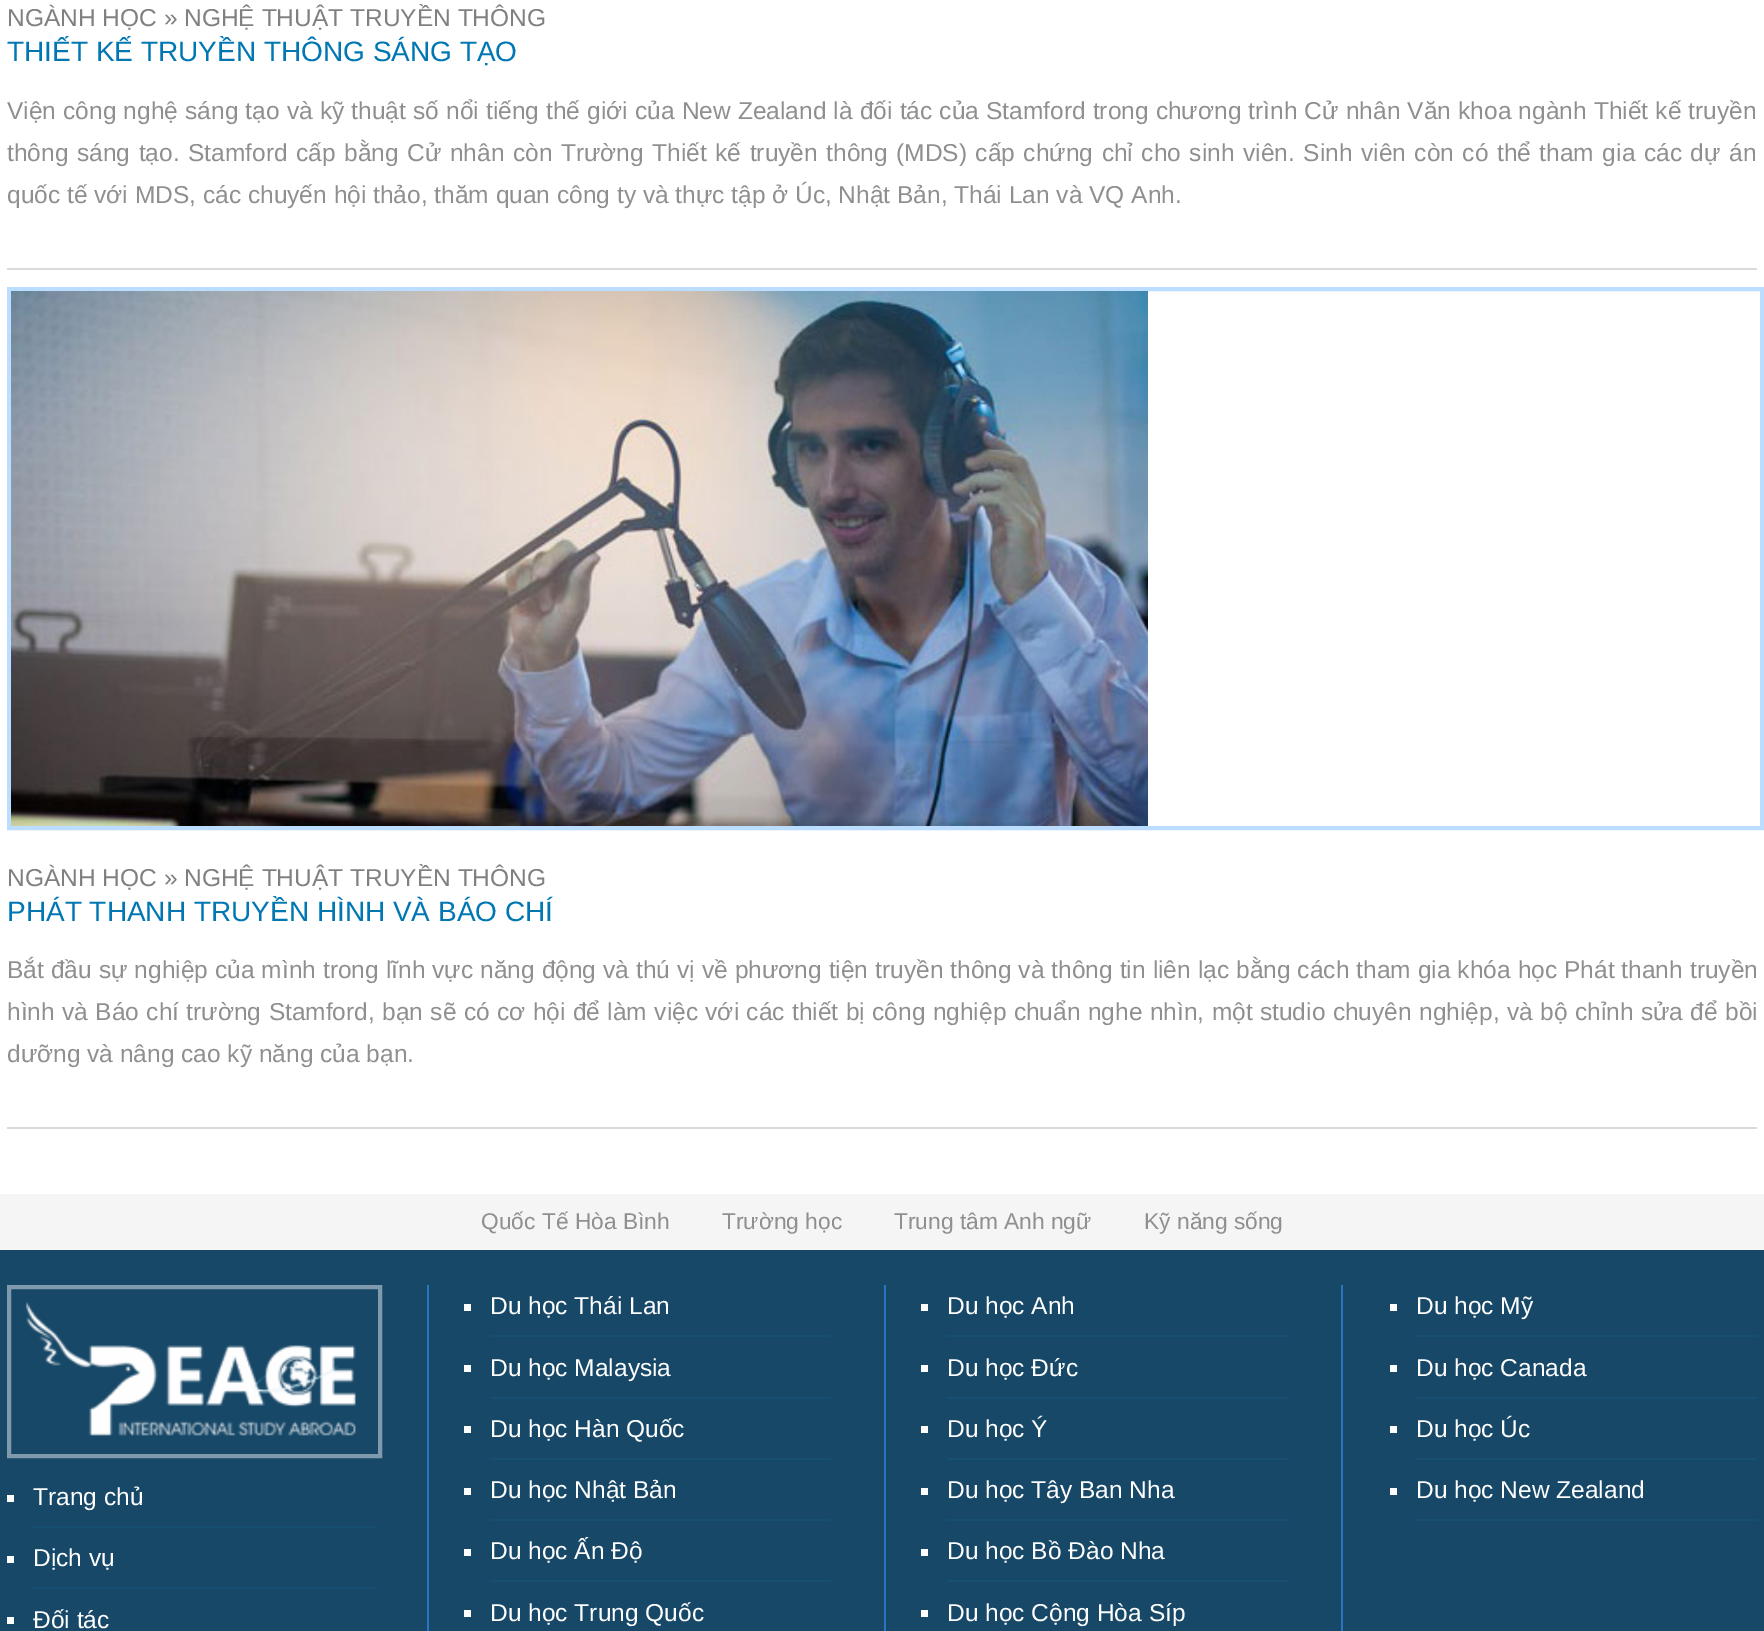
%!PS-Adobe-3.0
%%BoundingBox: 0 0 1764 1631
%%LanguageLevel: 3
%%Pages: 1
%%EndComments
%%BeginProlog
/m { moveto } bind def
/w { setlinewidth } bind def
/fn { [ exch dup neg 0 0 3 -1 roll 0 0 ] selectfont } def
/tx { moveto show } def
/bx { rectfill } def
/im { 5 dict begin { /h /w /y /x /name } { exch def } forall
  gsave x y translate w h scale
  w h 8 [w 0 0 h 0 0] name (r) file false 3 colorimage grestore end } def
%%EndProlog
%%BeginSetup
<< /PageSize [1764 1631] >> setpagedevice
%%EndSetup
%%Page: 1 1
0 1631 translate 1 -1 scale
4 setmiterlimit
1 setgray
0 0 1764 1631 bx
0.855 setgray
7 268 1750 2 bx
/LiberationSans-Regular 24.5 fn
0.502 setgray
(NGÀNH HỌC » NGHỆ THUẬT TRUYỀN THÔNG) 7 26 tx
/LiberationSans-Regular 28 fn
0 0.467 0.702 setrgbcolor
(THIẾT KẾ TRUYỀN THÔNG SÁNG TẠO) 7 61 tx
/LiberationSans-Regular 24.5 fn
0.561 setgray
7 119 m 0.35 0 32 (Viện công nghệ sáng tạo và kỹ thuật số nổi tiếng thế giới của New Zealand là đối tác của Stamford trong chương trình Cử nhân Văn khoa ngành Thiết kế truyền) widthshow
7 161 m 1.75 0 32 (thông sáng tạo. Stamford cấp bằng Cử nhân còn Trường Thiết kế truyền thông \(MDS\) cấp chứng chỉ cho sinh viên. Sinh viên còn có thể tham gia các dự án) widthshow
(quốc tế với MDS, các chuyến hội thảo, thăm quan công ty và thực tập ở Úc, Nhật Bản, Thái Lan và VQ Anh.) 7 203 tx
0.855 setgray
7 1127 1750 2 bx
0.733 0.867 1 setrgbcolor
4 w
9 289 1753 539 rectstroke
(image0.raw) 11 291 1137 535 im
0.502 setgray
(NGÀNH HỌC » NGHỆ THUẬT TRUYỀN THÔNG) 7 886 tx
/LiberationSans-Regular 28 fn
0 0.467 0.702 setrgbcolor
(PHÁT THANH TRUYỀN HÌNH VÀ BÁO CHÍ) 7 921 tx
/LiberationSans-Regular 24.5 fn
0.561 setgray
7 978 m 0.2 0 32 (Bắt đầu sự nghiệp của mình trong lĩnh vực năng động và thú vị về phương tiện truyền thông và thông tin liên lạc bằng cách tham gia khóa học Phát thanh truyền) widthshow
7 1020 m 0.6 0 32 (hình và Báo chí trường Stamford, bạn sẽ có cơ hội để làm việc với các thiết bị công nghiệp chuẩn nghe nhìn, một studio chuyên nghiệp, và bộ chỉnh sửa để bồi) widthshow
(dưỡng và nâng cao kỹ năng của bạn.) 7 1062 tx
0.961 setgray
0 1194 1764 56 bx
/LiberationSans-Regular 22.75 fn
0.561 setgray
(Quốc Tế Hòa Bình) 481 1229 tx
(Trường học) 722 1229 tx
(Trung tâm Anh ngữ) 894 1229 tx
(Kỹ năng sống) 1144 1229 tx
0.09 0.282 0.408 setrgbcolor
0 1250 1764 381 bx
0.165 0.459 0.757 setrgbcolor
884 1285 2 346 bx
0.09 0.31 0.451 setrgbcolor
490 1335 341 2 bx
1 setgray
464 1304 7 7 bx
/LiberationSans-Regular 24.5 fn
(Du học Thái Lan) 490 1314 tx
0.09 0.31 0.451 setrgbcolor
490 1397 341 2 bx
1 setgray
464 1365 7 7 bx
(Du học Malaysia) 490 1376 tx
0.09 0.31 0.451 setrgbcolor
490 1458 341 2 bx
1 setgray
464 1426 7 7 bx
(Du học Hàn Quốc) 490 1437 tx
0.09 0.31 0.451 setrgbcolor
490 1519 341 2 bx
1 setgray
464 1488 7 7 bx
(Du học Nhật Bản) 490 1498 tx
0.09 0.31 0.451 setrgbcolor
490 1580 341 2 bx
1 setgray
464 1549 7 7 bx
(Du học Ấn Độ) 490 1559 tx
464 1610 7 7 bx
(Du học Trung Quốc) 490 1621 tx
0.165 0.459 0.757 setrgbcolor
1341 1285 2 346 bx
0.09 0.31 0.451 setrgbcolor
947 1335 341 2 bx
1 setgray
921 1304 7 7 bx
(Du học Anh) 947 1314 tx
0.09 0.31 0.451 setrgbcolor
947 1397 341 2 bx
1 setgray
921 1365 7 7 bx
(Du học Đức) 947 1376 tx
0.09 0.31 0.451 setrgbcolor
947 1458 341 2 bx
1 setgray
921 1426 7 7 bx
(Du học Ý) 947 1437 tx
0.09 0.31 0.451 setrgbcolor
947 1519 341 2 bx
1 setgray
921 1488 7 7 bx
(Du học Tây Ban Nha) 947 1498 tx
0.09 0.31 0.451 setrgbcolor
947 1580 341 2 bx
1 setgray
921 1549 7 7 bx
(Du học Bồ Đào Nha) 947 1559 tx
921 1610 7 7 bx
(Du học Cộng Hòa Síp) 947 1621 tx
0.09 0.31 0.451 setrgbcolor
1416 1335 341 2 bx
1 setgray
1390 1304 7 7 bx
(Du học Mỹ) 1416 1314 tx
0.09 0.31 0.451 setrgbcolor
1416 1397 341 2 bx
1 setgray
1390 1365 7 7 bx
(Du học Canada) 1416 1376 tx
0.09 0.31 0.451 setrgbcolor
1416 1458 341 2 bx
1 setgray
1390 1426 7 7 bx
(Du học Úc) 1416 1437 tx
0.09 0.31 0.451 setrgbcolor
1416 1519 341 2 bx
1 setgray
1390 1488 7 7 bx
(Du học New Zealand) 1416 1498 tx
0.165 0.459 0.757 setrgbcolor
427 1285 2 346 bx
0.498 0.604 0.675 setrgbcolor
9 1287 371 169 rectstroke
(image1.raw) 25 1301 331 135 im
0.09 0.31 0.451 setrgbcolor
33 1526 342 2 bx
1 setgray
7 1495 7 7 bx
(Trang chủ) 33 1505 tx
0.09 0.31 0.451 setrgbcolor
33 1587 342 2 bx
1 setgray
7 1556 7 7 bx
(Dịch vụ) 33 1566 tx
7 1617 7 7 bx
(Đối tác) 33 1628 tx
showpage
%%EOF
